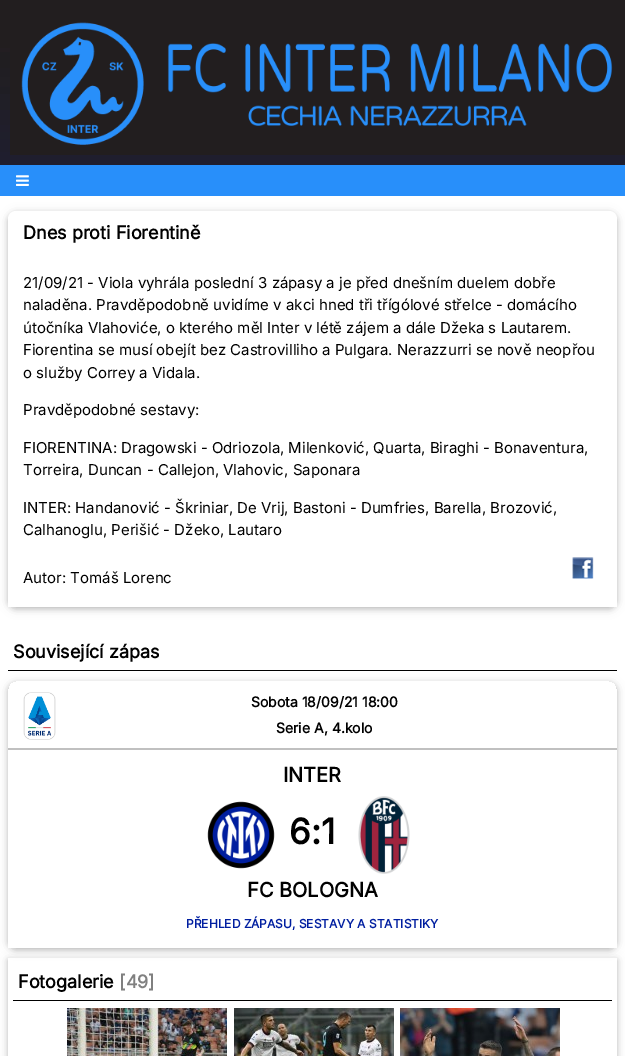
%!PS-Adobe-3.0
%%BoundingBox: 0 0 625 1056
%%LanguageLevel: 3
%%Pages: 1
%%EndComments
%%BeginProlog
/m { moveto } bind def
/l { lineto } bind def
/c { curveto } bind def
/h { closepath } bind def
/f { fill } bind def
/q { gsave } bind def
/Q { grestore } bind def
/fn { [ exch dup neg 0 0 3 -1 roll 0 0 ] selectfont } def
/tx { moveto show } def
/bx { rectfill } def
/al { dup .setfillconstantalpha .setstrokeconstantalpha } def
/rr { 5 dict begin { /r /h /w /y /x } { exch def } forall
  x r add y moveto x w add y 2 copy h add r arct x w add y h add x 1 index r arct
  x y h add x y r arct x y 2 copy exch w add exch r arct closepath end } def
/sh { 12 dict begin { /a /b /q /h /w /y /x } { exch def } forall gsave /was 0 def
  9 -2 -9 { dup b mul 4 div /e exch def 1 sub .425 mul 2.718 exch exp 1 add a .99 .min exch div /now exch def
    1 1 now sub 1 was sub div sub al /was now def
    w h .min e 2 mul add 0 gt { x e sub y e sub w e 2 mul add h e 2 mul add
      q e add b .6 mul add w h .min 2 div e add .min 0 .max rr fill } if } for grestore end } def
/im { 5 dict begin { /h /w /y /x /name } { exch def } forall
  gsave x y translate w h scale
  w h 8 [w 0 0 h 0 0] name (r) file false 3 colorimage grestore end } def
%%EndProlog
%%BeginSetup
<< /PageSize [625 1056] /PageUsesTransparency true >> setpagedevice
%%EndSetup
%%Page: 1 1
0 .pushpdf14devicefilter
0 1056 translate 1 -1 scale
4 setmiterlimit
1 setgray
0 0 625 1056 bx
(image0.raw) 0 0 625 165 im
(image1.raw) 10 22 615 133 im
0.157 0.561 0.98 setrgbcolor
0 165 625 31 bx
(image2.raw) 16 175 13 11 im
0 setgray
8 213 609 396 8 5 0.12 sh
8 213 609 396 8 2.5 0.16 sh
1 setgray
16 211 m 609 211 l 613.5 211 617 214.5 617 219 c 617 607 l 8 607 l 8 219 l 8 214.5 11.5 211 16 211 c h f
/Inter-Bold 18 fn
0 setgray
(Dnes proti Fiorentině) 23 239 tx
/Inter-Regular 15 fn
(21/09/21 - Viola vyhrála poslední 3 zápasy a je před dnešním duelem dobře) 23 288 tx
(naladěna. Pravděpodobně uvidíme v akci hned tři třígólové střelce - domácího) 23 310 tx
(útočníka Vlahoviće, o kterého měl Inter v létě zájem a dále Džeka s Lautarem.) 23 333 tx
(Fiorentina se musí obejít bez Castrovilliho a Pulgara. Nerazzurri se nově neopřou) 23 355 tx
(o služby Correy a Vidala.) 23 378 tx
(Pravděpodobné sestavy:) 23 415 tx
(FIORENTINA: Dragowski - Odriozola, Milenković, Quarta, Biraghi - Bonaventura,) 23 453 tx
(Torreira, Duncan - Callejon, Vlahovic, Saponara) 23 475 tx
(INTER: Handanović - Škriniar, De Vrij, Bastoni - Dumfries, Barella, Brozović,) 23 513 tx
(Calhanoglu, Perišić - Džeko, Lautaro) 23 535 tx
(Autor: Tomáš Lorenc) 23 583 tx
(image3.raw) 572 557 22 22 im
8 670 609 1 bx
/Inter-Bold 18 fn
(Související zápas) 13 658 tx
q
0 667 m 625 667 l 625 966 l 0 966 l h 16 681 m 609 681 l 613.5 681 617 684.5 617 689 c 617 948 l 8 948 l 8 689 l 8 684.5 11.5 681 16 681 c h eoclip newpath
8 683 609 267 8 5 0.12 sh
Q
q
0 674 m 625 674 l 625 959 l 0 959 l h 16 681 m 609 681 l 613.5 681 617 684.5 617 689 c 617 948 l 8 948 l 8 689 l 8 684.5 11.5 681 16 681 c h eoclip newpath
8 683 609 267 8 2.5 0.16 sh
Q
(image4.raw) 23 692 33 48 im
/Inter-Bold 14 fn
(Sobota 18/09/21 18:00) 251 707 tx
(Serie A, 4.kolo) 276 733 tx
0.753 setgray
8 748 609 2 bx
/Inter-Bold 20 fn
0 setgray
(INTER) 283 782 tx
(image5.raw) 207 801 68 68 im
/Inter-Bold 35 fn
(6:1) 289 844 tx
(image6.raw) 358 796 52 78 im
/Inter-Bold 20 fn
(FC BOLOGNA) 247 897 tx
/Inter-Bold 12 fn
0 0.118 0.627 setrgbcolor
(PŘEHLED ZÁPASU, SESTAVY A STATISTIKY) 186 928 tx
q
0 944 m 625 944 l 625 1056 l 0 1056 l h 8 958 m 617 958 l 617 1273 l 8 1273 l h eoclip newpath
0 setgray
8 960 609 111 0 5 0.12 sh
Q
q
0 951 m 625 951 l 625 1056 l 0 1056 l h 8 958 m 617 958 l 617 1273 l 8 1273 l h eoclip newpath
0 setgray
8 960 609 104 0 2.5 0.16 sh
Q
0 setgray
13 1000 599 1 bx
/Inter-Bold 18 fn
(Fotogalerie) 18 988 tx
0.502 setgray
([49]) 119 988 tx
(image7.raw) 67 1008 160 48 im
(image8.raw) 234 1008 160 48 im
(image9.raw) 400 1008 160 48 im
.poppdf14devicefilter showpage
%%EOF
